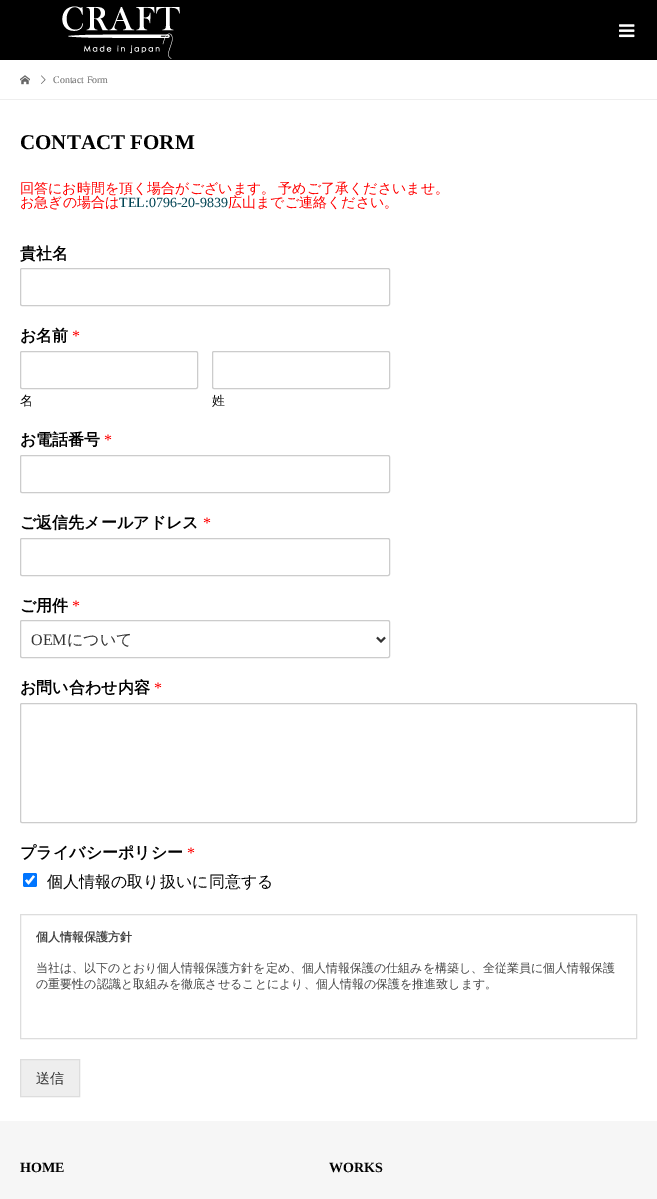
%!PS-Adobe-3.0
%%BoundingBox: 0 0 657 1199
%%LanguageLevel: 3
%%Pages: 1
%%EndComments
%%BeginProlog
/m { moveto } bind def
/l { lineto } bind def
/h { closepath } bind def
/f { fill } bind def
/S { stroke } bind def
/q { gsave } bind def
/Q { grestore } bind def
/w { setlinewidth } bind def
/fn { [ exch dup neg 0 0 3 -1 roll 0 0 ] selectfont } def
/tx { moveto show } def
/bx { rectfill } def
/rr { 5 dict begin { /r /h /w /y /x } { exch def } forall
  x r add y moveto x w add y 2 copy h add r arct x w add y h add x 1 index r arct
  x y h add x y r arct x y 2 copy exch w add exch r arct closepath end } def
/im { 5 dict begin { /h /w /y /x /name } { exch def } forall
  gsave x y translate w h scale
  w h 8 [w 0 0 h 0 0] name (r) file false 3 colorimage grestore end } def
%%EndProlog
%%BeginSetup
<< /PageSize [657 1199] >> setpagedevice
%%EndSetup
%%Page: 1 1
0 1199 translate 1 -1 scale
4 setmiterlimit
1 setgray
0 0 657 1199 bx
0 setgray
0 0 657 60 bx
(image0.raw) 62 6 118 53 im
(image1.raw) 619 24 16 14 im
0.933 setgray
0 99 657 1 bx
(image2.raw) 20 75 10 10 im
(image3.raw) 41 75 5 9 im
/LiberationSerif-Regular 10 fn
0.4 setgray
(Contact Form) 53 83 tx
/LiberationSerif-Bold 21 fn
0 setgray
(CONTACT FORM) 20 149 tx
/WenQuanYiZenHei-Medium 14 fn
1 0 0 setrgbcolor
20 193 m -1 0 32 (回答にお時間を頂く場合がございます。 予めご了承くださいませ。) widthshow
(お急ぎの場合は) 20 207 tx
/LiberationSerif-Regular 14 fn
0 0.263 0.325 setrgbcolor
(TEL:0796-20-9839) 119 207 tx
/WenQuanYiZenHei-Medium 14 fn
1 0 0 setrgbcolor
(広山までご連絡ください。) 228 207 tx
/WenQuanYiZenHei-Bold 16 fn
0 setgray
(貴社名) 20 259 tx
0.8 setgray
20.5 268.5 369 37 1.5 rr S
0 setgray
(お名前) 20 341 tx
/LiberationSerif-Regular 16 fn
1 0 0 setrgbcolor
(*) 72 341 tx
0.8 setgray
20.5 351.5 177 37 1.5 rr S
/WenQuanYiZenHei-Medium 13 fn
0 setgray
(名) 20 405 tx
0.8 setgray
212.5 351.5 177 37 1.5 rr S
0 setgray
(姓) 212 405 tx
/WenQuanYiZenHei-Bold 16 fn
(お電話番号) 20 445 tx
/LiberationSerif-Regular 16 fn
1 0 0 setrgbcolor
(*) 104 445 tx
0.8 setgray
20.5 455.5 369 37 1.5 rr S
/WenQuanYiZenHei-Bold 16 fn
0 setgray
(ご返信先メールアドレス) 20 528 tx
/LiberationSerif-Regular 16 fn
1 0 0 setrgbcolor
(*) 203 528 tx
0.8 setgray
20.5 538.5 369 37 1.5 rr S
/WenQuanYiZenHei-Bold 16 fn
0 setgray
(ご用件) 20 611 tx
/LiberationSerif-Regular 16 fn
1 0 0 setrgbcolor
(*) 72 611 tx
0.8 setgray
20.5 620.5 369 37 1.5 rr S
0.2 setgray
2 w
377 637.5 m 381 641.5 l 385 637.5 l S
(OEM) 31 645 tx
/WenQuanYiZenHei-Medium 16 fn
(について) 67 645 tx
/WenQuanYiZenHei-Bold 16 fn
0 setgray
(お問い合わせ内容) 20 693 tx
/LiberationSerif-Regular 16 fn
1 0 0 setrgbcolor
(*) 154 693 tx
0.8 setgray
1 w
20.5 703.5 616 119 1.5 rr S
/WenQuanYiZenHei-Bold 16 fn
0 setgray
(プライバシーポリシー) 20 858 tx
/LiberationSerif-Regular 16 fn
1 0 0 setrgbcolor
(*) 187 858 tx
0 0.459 1 setrgbcolor
23 873 14 14 2 rr f
1 setgray
2.2 w
26 880 m 28.5 883 l 34 876 l S
/WenQuanYiZenHei-Medium 16 fn
0 setgray
(個人情報の取り扱いに同意する) 47 887 tx
0.867 setgray
1 w
20.5 914.5 616 124 rectstroke
/WenQuanYiZenHei-Bold 12 fn
0.267 setgray
(個人情報保護方針) 36 941 tx
/WenQuanYiZenHei-Medium 12 fn
(当社は、以下のとおり個人情報保護方針を定め、個人情報保護の仕組みを構築し、全従業員に個人情報保護) 36 972 tx
(の重要性の認識と取組みを徹底させることにより、個人情報の保護を推進致します。) 36 988 tx
0.933 setgray
20.5 1059.5 m 79.5 1059.5 l 79.5 1096.5 l 20.5 1096.5 l h q f Q
0.867 setgray
S
/WenQuanYiZenHei-Medium 14 fn
0.2 setgray
(送信) 36 1083 tx
0.965 setgray
0 1121 657 78 bx
/LiberationSerif-Bold 14 fn
0 setgray
(HOME) 20 1172 tx
(WORKS) 329 1172 tx
showpage
%%EOF
